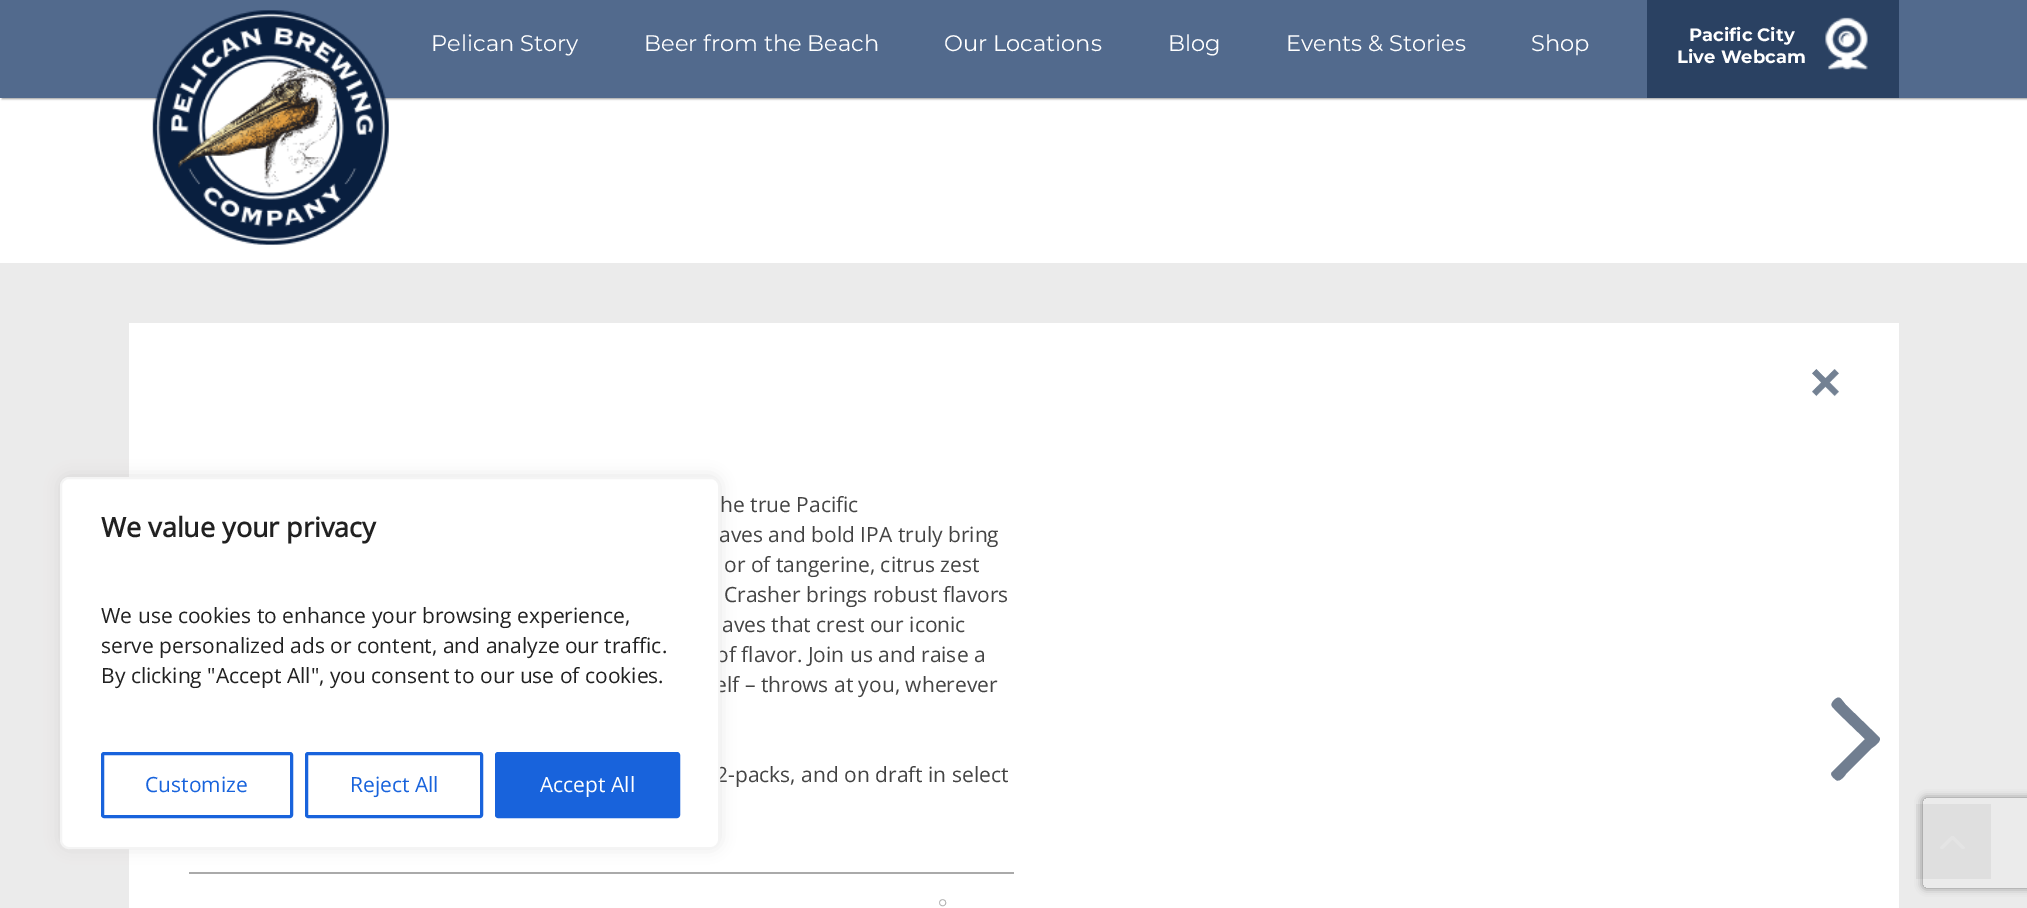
%!PS-Adobe-3.0
%%BoundingBox: 0 0 2027 908
%%LanguageLevel: 3
%%Pages: 1
%%EndComments
%%BeginProlog
/m { moveto } bind def
/l { lineto } bind def
/c { curveto } bind def
/h { closepath } bind def
/f { fill } bind def
/S { stroke } bind def
/q { gsave } bind def
/Q { grestore } bind def
/w { setlinewidth } bind def
/fn { [ exch dup neg 0 0 3 -1 roll 0 0 ] selectfont } def
/tx { moveto show } def
/bx { rectfill } def
/al { dup .setfillconstantalpha .setstrokeconstantalpha } def
/rr { 5 dict begin { /r /h /w /y /x } { exch def } forall
  x r add y moveto x w add y 2 copy h add r arct x w add y h add x 1 index r arct
  x y h add x y r arct x y 2 copy exch w add exch r arct closepath end } def
/sh { 12 dict begin { /a /b /q /h /w /y /x } { exch def } forall gsave /was 0 def
  9 -2 -9 { dup b mul 4 div /e exch def 1 sub .425 mul 2.718 exch exp 1 add a .99 .min exch div /now exch def
    1 1 now sub 1 was sub div sub al /was now def
    w h .min e 2 mul add 0 gt { x e sub y e sub w e 2 mul add h e 2 mul add
      q e add b .6 mul add w h .min 2 div e add .min 0 .max rr fill } if } for grestore end } def
/im { 5 dict begin { /h /w /y /x /name } { exch def } forall
  gsave x y translate w h scale
  w h 8 [w 0 0 h 0 0] name (r) file false 3 colorimage grestore end } def
%%EndProlog
%%BeginSetup
<< /PageSize [2027 908] /PageUsesTransparency true >> setpagedevice
%%EndSetup
%%Page: 1 1
0 .pushpdf14devicefilter
0 908 translate 1 -1 scale
4 setmiterlimit
1 setgray
0 0 2027 908 bx
0 setgray
2 2 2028 97 0 1 0.4 sh
0.322 0.416 0.553 setrgbcolor
0 0 2027 98 bx
(image0.raw) 152 10 237 235 im
/Montserrat-Regular 22.5 fn
1 setgray
(Pelican Story) 431 51 tx
(Beer from the Beach) 644 51 tx
(Our Locations) 944 51 tx
(Blog) 1168 51 tx
(Events & Stories) 1286 51 tx
(Shop) 1531 51 tx
0.165 0.255 0.384 setrgbcolor
1647 0 252 98 bx
/Montserrat-Bold 18 fn
1 setgray
(Pacific City) 1689 41 tx
(Live Webcam) 1677 63 tx
(image1.raw) 1825 17 43 53 im
0.922 setgray
0 263 2027 645 bx
1 setgray
129 323 1770 585 bx
0.675 0.671 0.671 setrgbcolor
60 476 660 372 9 7.5 0.3 sh
/OpenSans-Regular 21 fn
0.267 setgray
(of flavor. Join us and raise a) 716 662 tx
(elf – throws at you, wherever) 715 692 tx
(2-packs, and on draft in select) 716 782 tx
1 setgray
61 478 658 370 8 rr q f Q
0.957 setgray
2 w
S
/OpenSans-Bold 27 fn
0.129 setgray
(We value your privacy) 101 537 tx
/OpenSans-Regular 21 fn
(We use cookies to enhance your browsing experience,) 101 623 tx
(serve personalized ads or content, and analyze our traffic.) 101 653 tx
(By clicking "Accept All", you consent to our use of cookies.) 101 683 tx
0.094 0.388 0.863 setrgbcolor
3 w
102.5 753.5 189 63 1.5 rr S
(Customize) 145 792 tx
306.5 753.5 175 63 1.5 rr S
(Reject All) 350 792 tx
496.5 753.5 182 63 1.5 rr q f Q
S
1 setgray
(Accept All) 540 792 tx
(image2.raw) 1812 369 27 28 im
0.667 setgray
189 872 825 2 bx
0.267 setgray
(he true Pacific) 720 512 tx
(aves and bold IPA truly bring) 719 542 tx
(or of tangerine, citrus zest) 724 572 tx
(Crasher brings robust flavors) 724 602 tx
(aves that crest our iconic) 722 632 tx
/Montserrat-Regular 22.5 fn
0.667 setgray
938 915 m 3 0 (°) ashow
0.443 0.494 0.565 setrgbcolor
1879 737 m 1883 741 1873 747 1872 748 c 1846 774 l 1846 774 1840 783 1836 780 c 1835 779 1829 775 1832 772 c 1865 739 l 1837 712 l 1832 706 1829 706 1834 700 c 1840 695 1840 698 1846 705 c h f
q
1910 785 m 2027 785 l 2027 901 l 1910 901 l h 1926 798 m 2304 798 l 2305.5 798 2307 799.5 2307 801 c 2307 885 l 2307 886.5 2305.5 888 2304 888 c 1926 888 l 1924.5 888 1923 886.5 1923 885 c 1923 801 l 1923 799.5 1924.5 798 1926 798 c h eoclip newpath
0.502 setgray
1923 798 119 90 3 4 1 sh
Q
0.05 al
0 setgray
1916 804 75 75 bx
1 al
(image3.raw) 1940 836 25 13 im
.poppdf14devicefilter showpage
%%EOF
